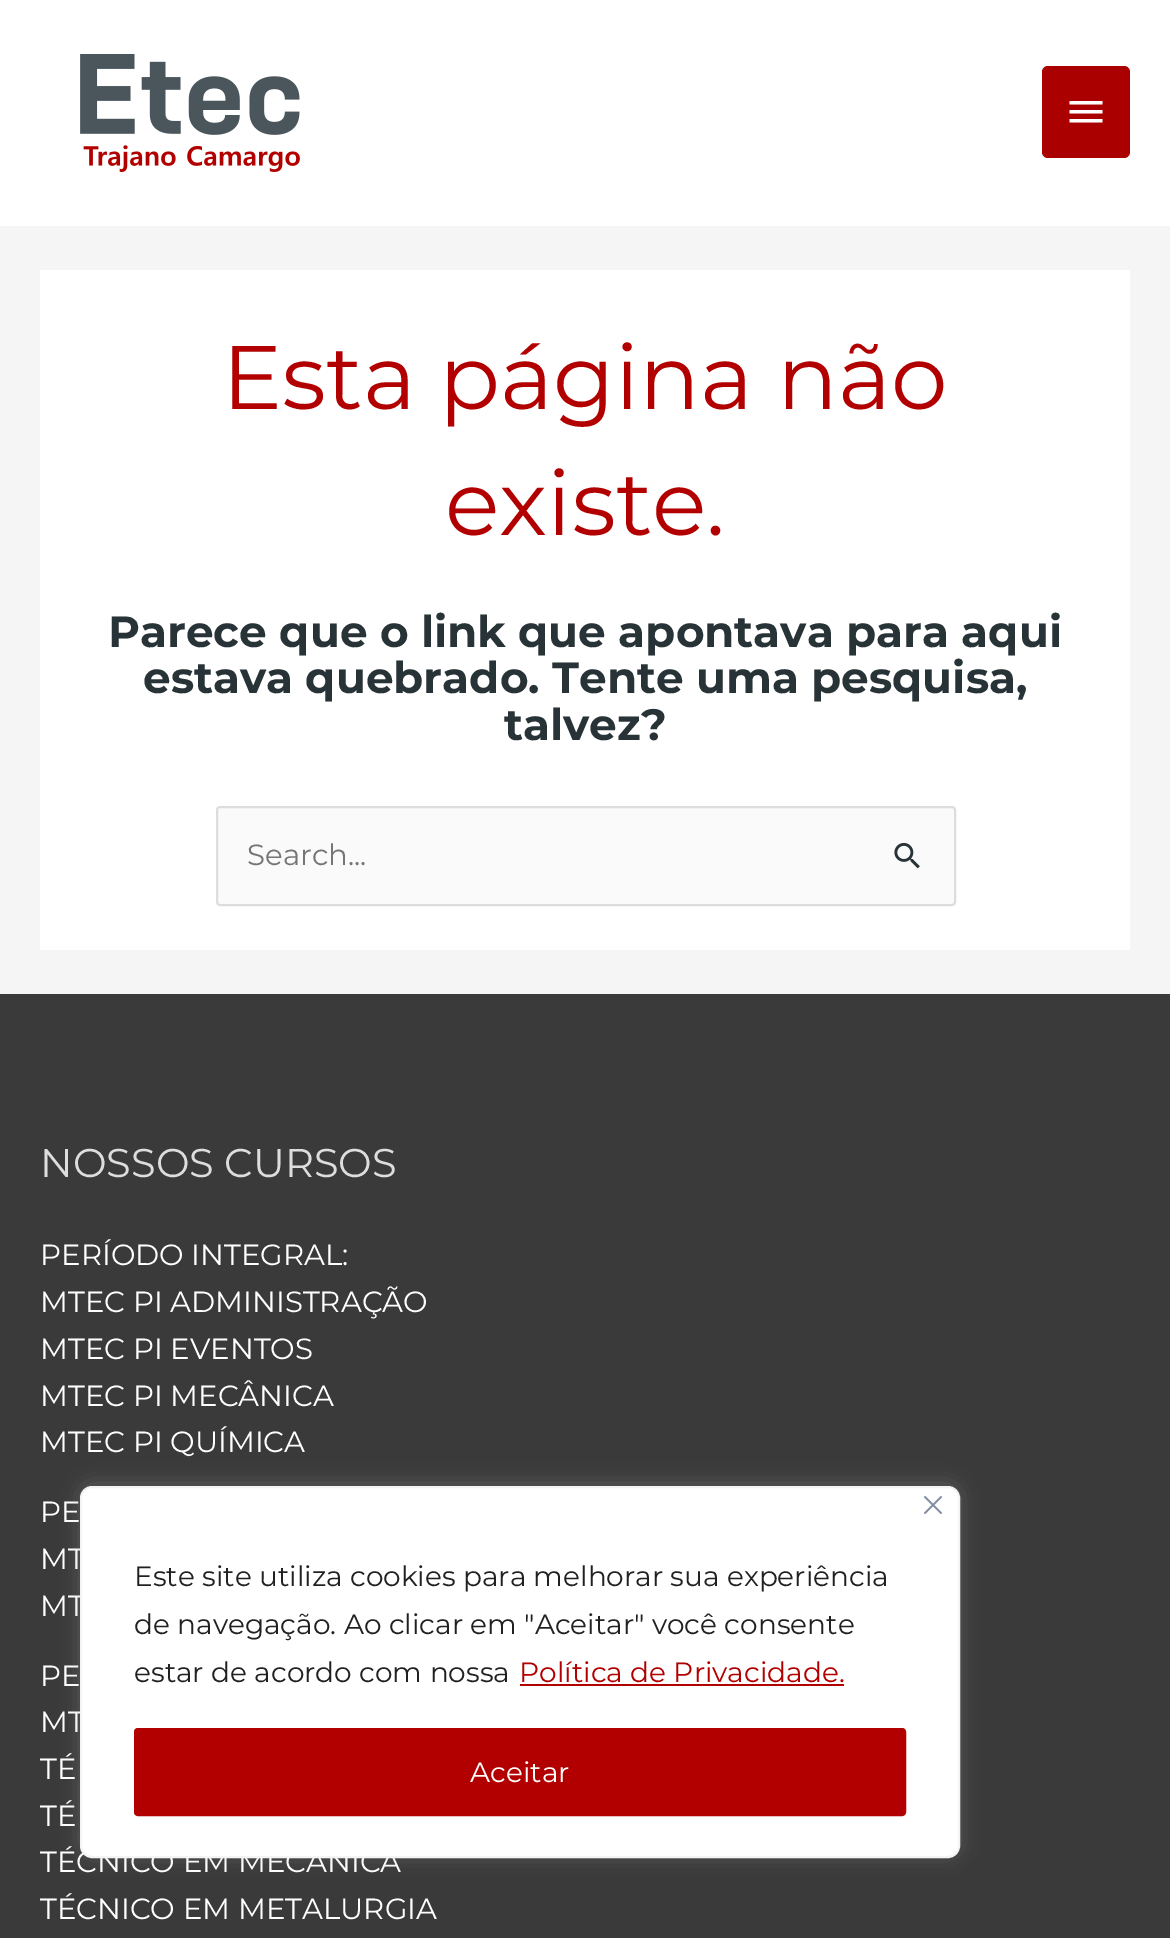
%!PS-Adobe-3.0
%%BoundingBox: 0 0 1170 1938
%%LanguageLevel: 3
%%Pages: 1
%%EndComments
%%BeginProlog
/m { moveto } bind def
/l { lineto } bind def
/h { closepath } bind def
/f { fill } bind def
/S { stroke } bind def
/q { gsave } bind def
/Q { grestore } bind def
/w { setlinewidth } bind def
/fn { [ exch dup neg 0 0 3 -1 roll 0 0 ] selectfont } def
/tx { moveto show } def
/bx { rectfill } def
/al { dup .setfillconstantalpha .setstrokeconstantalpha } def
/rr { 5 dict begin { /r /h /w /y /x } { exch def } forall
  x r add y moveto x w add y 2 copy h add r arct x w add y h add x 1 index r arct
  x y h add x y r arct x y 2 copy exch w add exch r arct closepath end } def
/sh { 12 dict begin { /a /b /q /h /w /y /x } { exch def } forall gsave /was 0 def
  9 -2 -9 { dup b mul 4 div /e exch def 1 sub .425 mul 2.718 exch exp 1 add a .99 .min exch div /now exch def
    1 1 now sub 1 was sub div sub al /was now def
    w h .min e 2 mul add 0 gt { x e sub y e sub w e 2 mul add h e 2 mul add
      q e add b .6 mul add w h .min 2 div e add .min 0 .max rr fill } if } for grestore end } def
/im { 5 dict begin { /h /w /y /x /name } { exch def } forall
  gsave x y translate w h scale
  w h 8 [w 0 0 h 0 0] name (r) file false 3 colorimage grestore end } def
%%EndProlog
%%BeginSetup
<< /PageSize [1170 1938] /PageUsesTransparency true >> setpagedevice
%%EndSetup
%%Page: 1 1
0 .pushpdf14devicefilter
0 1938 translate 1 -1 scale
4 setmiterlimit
0.961 setgray
0 0 1170 1938 bx
1 setgray
0 0 1170 226 bx
(image0.raw) 80 54 220 118 im
0.671 0 0 setrgbcolor
1042 66 88 92 6 rr f
1 setgray
1069.5 101 m 1102.5 101 l 1102.5 104.5 l 1069.5 104.5 l h 1069.5 113.5 m 1069.5 110 l 1102.5 110 l 1102.5 113.5 l h 1069.5 122.5 m 1069.5 119 l 1102.5 119 l 1102.5 122.5 l h f
40 270 1090 680 bx
/Montserrat-Regular 90 fn
0.698 0 0 setrgbcolor
(Esta página não) 222 409 tx
(existe.) 445 535 tx
/Montserrat-Bold 43.75 fn
0.157 0.2 0.216 setrgbcolor
(Parece que o link que apontava para aqui) 108 647 tx
(estava quebrado. Tente uma pesquisa,) 143 693 tx
(talvez?) 504 740 tx
0.98 setgray
217 807 738 98 3 rr q f Q
0.867 setgray
2 w
S
/Montserrat-Regular 29.25 fn
0.459 setgray
(Search...) 247 865 tx
(image1.raw) 894 842 26 27 im
0.227 setgray
0 994 1170 944 bx
/Montserrat-Regular 40.1 fn
0.867 setgray
(NOSSOS CURSOS) 40 1177 tx
/Montserrat-Regular 29.25 fn
1 setgray
(PERÍODO INTEGRAL:) 40 1265 tx
(MTEC PI ADMINISTRAÇÃO) 40 1312 tx
(MTEC PI EVENTOS) 40 1359 tx
(MTEC PI MECÂNICA) 40 1406 tx
(MTEC PI QUÍMICA) 40 1452 tx
(PE) 40 1522 tx
(MT) 40 1569 tx
(MT) 40 1616 tx
(PE) 40 1686 tx
(MT) 40 1732 tx
(TÉ) 40 1779 tx
(TÉ) 40 1826 tx
(TÉCNICO EM MECÂNICA) 40 1872 tx
(TÉCNICO EM METALURGIA) 40 1919 tx
0.675 0.671 0.671 setrgbcolor
80 1484 880 372 12 10 0.3 sh
1 setgray
81 1487 878 370 11 rr q f Q
0.957 setgray
S
(image2.raw) 924 1496 18 18 im
/Montserrat-Regular 28 fn
0.129 setgray
(Este site utiliza cookies para melhorar sua experiência) 134 1586 tx
(de navegação. Ao clicar em "Aceitar" você consente) 134 1634 tx
(estar de acordo com nossa) 134 1682 tx
0.698 0 0 setrgbcolor
(Política de Privacidade.) 519 1682 tx
520 1684 324 2 bx
136 1730 768 84 2 rr q f Q
4 w
S
1 setgray
(Aceitar) 470 1782 tx
.poppdf14devicefilter showpage
%%EOF
